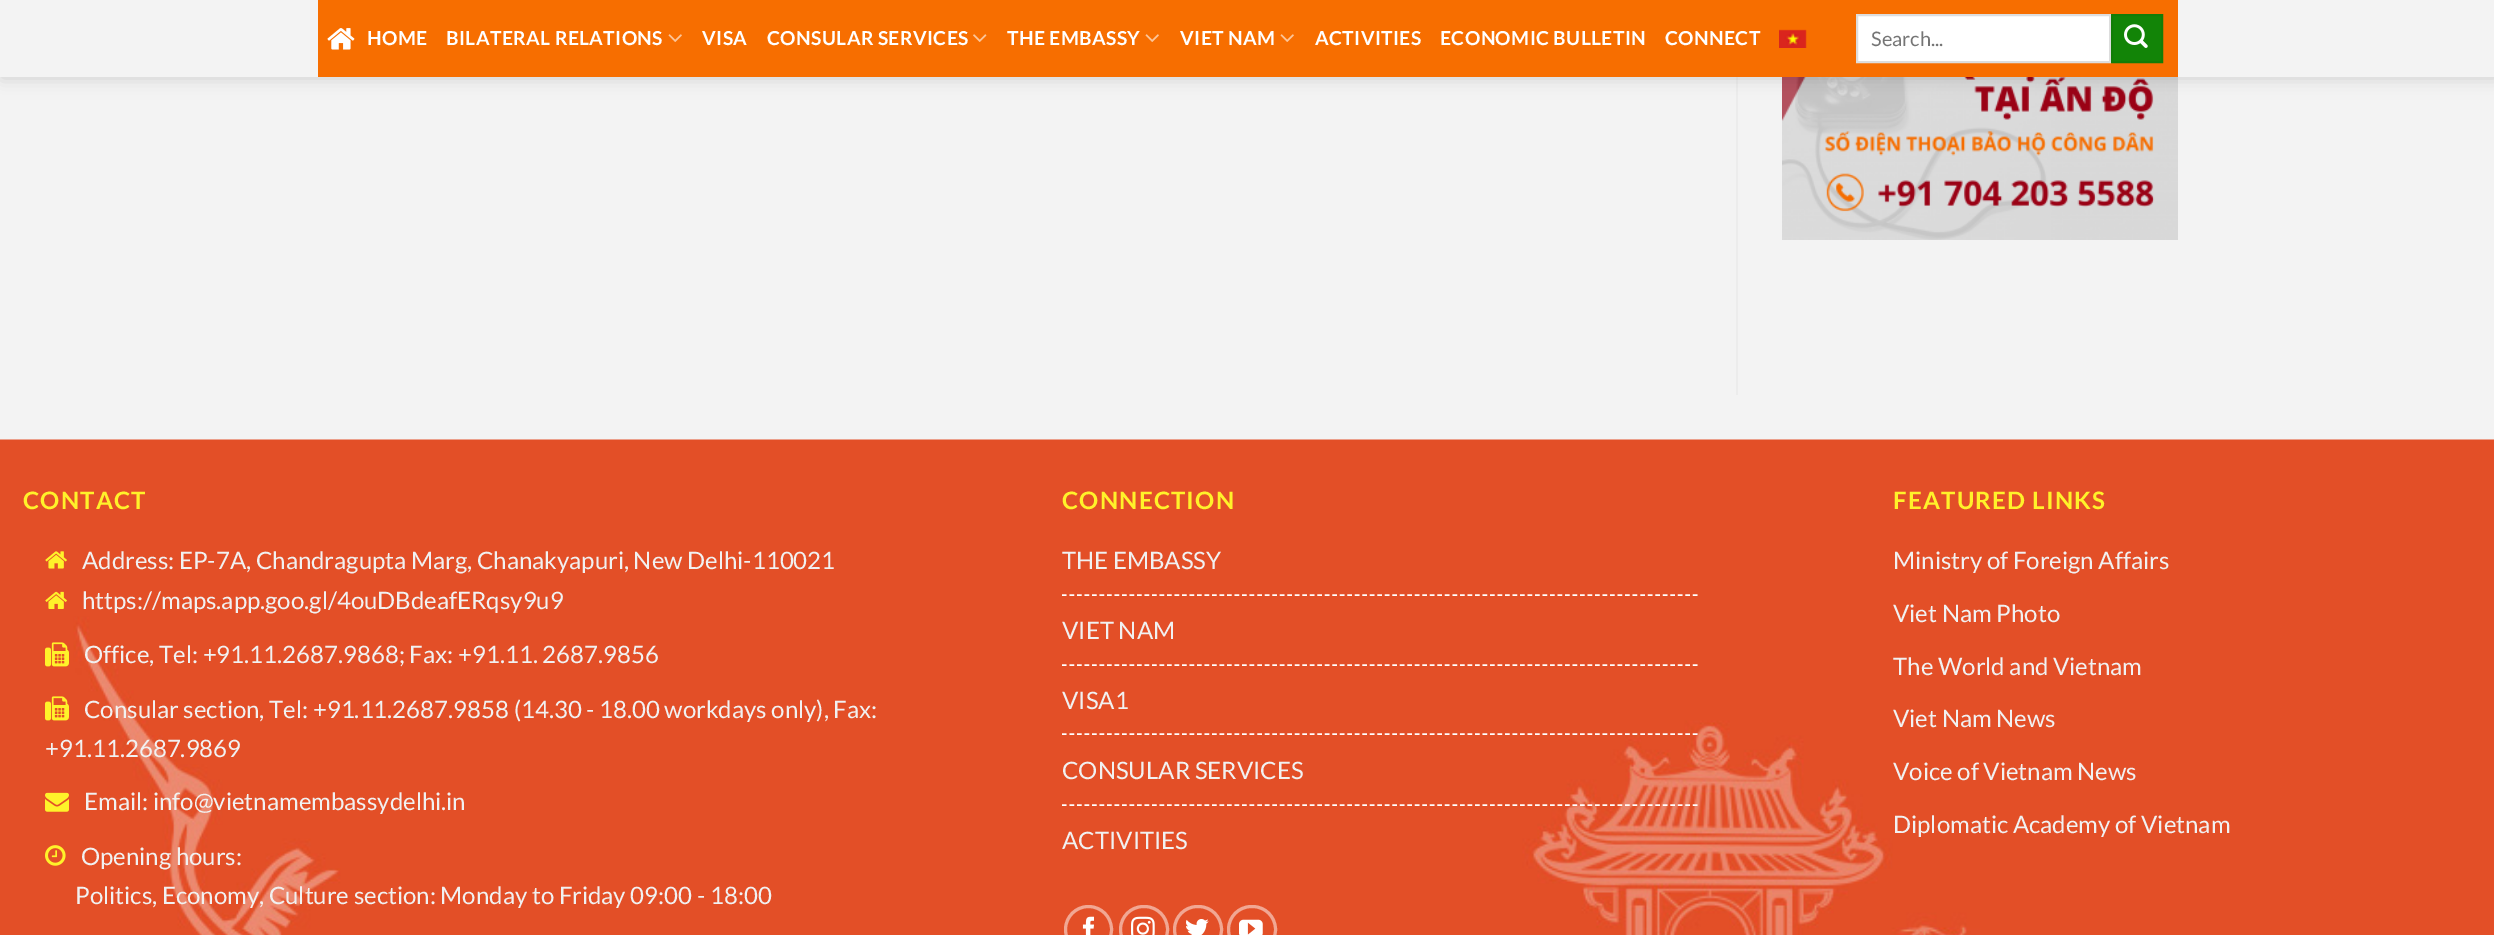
%!PS-Adobe-3.0
%%BoundingBox: 0 0 2494 935
%%LanguageLevel: 3
%%Pages: 1
%%EndComments
%%BeginProlog
/m { moveto } bind def
/l { lineto } bind def
/h { closepath } bind def
/f { fill } bind def
/S { stroke } bind def
/q { gsave } bind def
/Q { grestore } bind def
/w { setlinewidth } bind def
/fn { [ exch dup neg 0 0 3 -1 roll 0 0 ] selectfont } def
/tx { moveto show } def
/bx { rectfill } def
/al { dup .setfillconstantalpha .setstrokeconstantalpha } def
/ci { newpath 0 360 arc closepath } def
/rr { 5 dict begin { /r /h /w /y /x } { exch def } forall
  x r add y moveto x w add y 2 copy h add r arct x w add y h add x 1 index r arct
  x y h add x y r arct x y 2 copy exch w add exch r arct closepath end } def
/sh { 12 dict begin { /a /b /q /h /w /y /x } { exch def } forall gsave /was 0 def
  9 -2 -9 { dup b mul 4 div /e exch def 1 sub .425 mul 2.718 exch exp 1 add a .99 .min exch div /now exch def
    1 1 now sub 1 was sub div sub al /was now def
    w h .min e 2 mul add 0 gt { x e sub y e sub w e 2 mul add h e 2 mul add
      q e add b .6 mul add w h .min 2 div e add .min 0 .max rr fill } if } for grestore end } def
/im { 5 dict begin { /h /w /y /x /name } { exch def } forall
  gsave x y translate w h scale
  w h 8 [w 0 0 h 0 0] name (r) file false 3 colorimage grestore end } def
%%EndProlog
%%BeginSetup
<< /PageSize [2494 935] /PageUsesTransparency true >> setpagedevice
%%EndSetup
%%Page: 1 1
0 .pushpdf14devicefilter
0 935 translate 1 -1 scale
4 setmiterlimit
0.953 setgray
0 0 2494 935 bx
0.925 setgray
1736 77 2 318 bx
(image5.raw) 1782 77 396 163 im
0 setgray
2 2 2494 76 0 7.5 0.15 sh
0.953 setgray
0 0 2494 77 bx
0.969 0.431 0 setrgbcolor
318 0 1860 77 bx
(image0.raw) 327 28 28 22 im
/Lato-Bold 19.25 fn
1 setgray
367 45 m 0.4 0 (HOME) ashow
446 45 m 0.4 0 (BILATERAL RELATIONS) ashow
(image1.raw) 668 34 14 8 im
702 45 m 0.4 0 (VISA) ashow
767 45 m 0.4 0 (CONSULAR SERVICES) ashow
(image2.raw) 973 34 14 8 im
1007 45 m 0.4 0 (THE EMBASSY) ashow
(image1.raw) 1145 34 14 8 im
1180 45 m 0.4 0 (VIET NAM) ashow
(image1.raw) 1280 34 14 8 im
1315 45 m 0.4 0 (ACTIVITIES) ashow
1440 45 m 0.4 0 (ECONOMIC BULLETIN) ashow
1665 45 m 0.4 0 (CONNECT) ashow
(image3.raw) 1779 29 28 19 im
1857 15 m 2110 15 l 2110 62 l 1857 62 l h q f Q
0.867 setgray
2 w
S
/Lato-Regular 20 fn
0.459 setgray
(Search...) 1871 46 tx
0.071 0.518 0.027 setrgbcolor
2112 15 m 2162 15 l 2162 62 l 2112 62 l h q f Q
0.067 0.49 0.027 setrgbcolor
S
(image4.raw) 2124 24 24 24 im
(image6.raw) 0 439 2494 496 im
/Lato-Bold 24 fn
1 0.949 0.165 setrgbcolor
23 509 m 1.25 0 (CONTACT) ashow
(image7.raw) 45 551 22 18 im
/Lato-Regular 24 fn
0.945 setgray
(Address: EP-7A, Chandragupta Marg, Chanakyapuri, New Delhi-110021) 82 569 tx
(image8.raw) 45 591 22 18 im
(https://maps.app.goo.gl/4ouDBdeafERqsy9u9) 82 609 tx
(image9.raw) 45 642 24 25 im
(Office, Tel: +91.11.2687.9868; Fax: +91.11. 2687.9856) 84 663 tx
(image9.raw) 45 696 24 25 im
(Consular section, Tel: +91.11.2687.9858 \(14.30 - 18.00 workdays only\), Fax:) 84 718 tx
(+91.11.2687.9869) 45 757 tx
(image10.raw) 45 792 24 20 im
(Email: info@vietnamembassydelhi.in) 84 810 tx
(image11.raw) 45 845 21 21 im
(Opening hours:) 81 865 tx
(Politics, Economy, Culture section: Monday to Friday 09:00 - 18:00) 75 904 tx
/Lato-Bold 24 fn
1 0.949 0.165 setrgbcolor
1062 509 m 1.25 0 (CONNECTION) ashow
1 setgray
1.5 w
[4.5 3.01] 0 setdash
1062 595 m 1698 595 l S
/Lato-Regular 24 fn
0.945 setgray
(THE EMBASSY) 1062 569 tx
1 setgray
1062 665 m 1698 665 l S
0.945 setgray
(VIET NAM) 1062 639 tx
1 setgray
1062 734 m 1698 734 l S
0.945 setgray
(VISA1) 1062 709 tx
1 setgray
1062 805 m 1698 805 l S
0.945 setgray
(CONSULAR SERVICES) 1062 779 tx
(ACTIVITIES) 1062 849 tx
0.945 0.655 0.576 setrgbcolor
3 w
[] 0 setdash
1088.5 929.5 23 ci S
(image12.raw) 1082 916 12 19 im
1120.5 906.5 47 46 23 rr S
(image13.raw) 1131 916 24 19 im
1174.5 906.5 47 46 23 rr S
(image14.raw) 1186 919 23 16 im
1228.5 906.5 47 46 23 rr S
(image15.raw) 1239 919 24 16 im
/Lato-Bold 24 fn
1 0.949 0.165 setrgbcolor
1893 509 m 1.25 0 (FEATURED LINKS) ashow
/Lato-Regular 24 fn
0.945 setgray
(Ministry of Foreign Affairs) 1893 569 tx
(Viet Nam Photo) 1893 622 tx
(The World and Vietnam) 1893 675 tx
(Viet Nam News) 1893 727 tx
(Voice of Vietnam News) 1893 780 tx
(Diplomatic Academy of Vietnam) 1893 833 tx
.poppdf14devicefilter showpage
%%EOF
